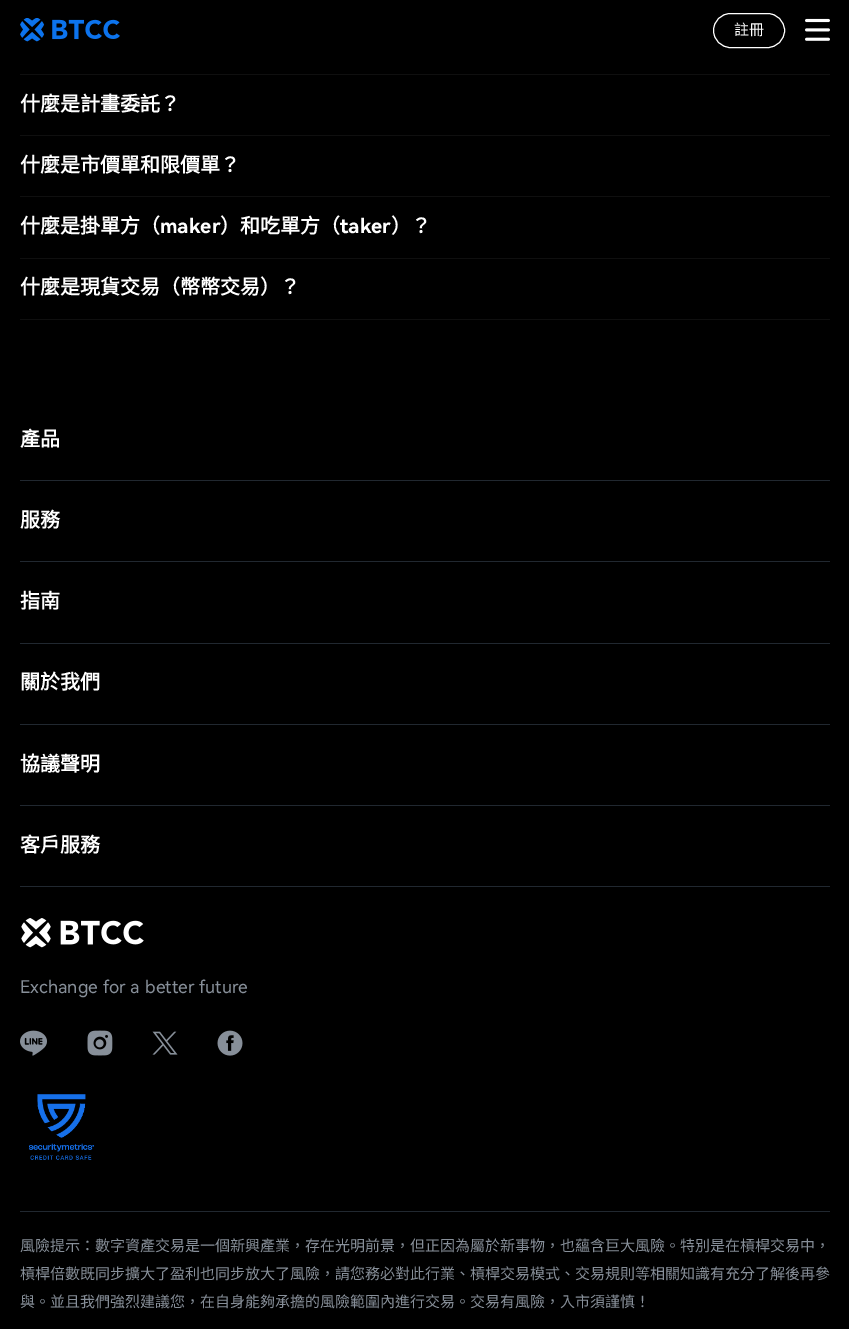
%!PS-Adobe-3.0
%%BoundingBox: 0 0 849 1329
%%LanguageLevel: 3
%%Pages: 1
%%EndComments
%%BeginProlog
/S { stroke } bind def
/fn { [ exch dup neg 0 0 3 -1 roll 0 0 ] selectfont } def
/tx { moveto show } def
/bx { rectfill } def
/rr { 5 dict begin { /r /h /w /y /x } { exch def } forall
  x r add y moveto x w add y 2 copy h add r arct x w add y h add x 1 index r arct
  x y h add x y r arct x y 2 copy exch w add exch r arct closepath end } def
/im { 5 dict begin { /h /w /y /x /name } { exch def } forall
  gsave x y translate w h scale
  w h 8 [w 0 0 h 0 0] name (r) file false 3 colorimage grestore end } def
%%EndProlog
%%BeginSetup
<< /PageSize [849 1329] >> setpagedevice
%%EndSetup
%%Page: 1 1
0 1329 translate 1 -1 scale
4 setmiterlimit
0 setgray
0 0 849 1329 bx
(image0.raw) 20 18 100 24 im
1 setgray
713.5 13.5 71 34 17 rr S
/NotoSansCJKTC-Regular 15 fn
(註冊) 734 35 tx
(image1.raw) 805 18 25 23 im
0.059 setgray
20 74 810 1 bx
20 135 810 1 bx
/NotoSansCJKTC-Bold 20 fn
1 setgray
(什麼是計畫委託？) 20 111 tx
0.059 setgray
20 196 810 1 bx
1 setgray
(什麼是市價單和限價單？) 20 172 tx
0.059 setgray
20 258 810 1 bx
1 setgray
(什麼是掛單方（) 20 233 tx
/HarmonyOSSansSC-Bold 20 fn
(maker) 160 233 tx
/NotoSansCJKTC-Bold 20 fn
(）和吃單方（) 220 233 tx
/HarmonyOSSansSC-Bold 20 fn
(taker) 340 233 tx
/NotoSansCJKTC-Bold 20 fn
(）？) 391 233 tx
0.059 setgray
20 319 810 1 bx
1 setgray
(什麼是現貨交易（幣幣交易）？) 20 294 tx
0.129 0.157 0.188 setrgbcolor
20 480 810 1 bx
1 setgray
(產品) 20 446 tx
0.129 0.157 0.188 setrgbcolor
20 561 810 1 bx
1 setgray
(服務) 20 527 tx
0.129 0.157 0.188 setrgbcolor
20 643 810 1 bx
1 setgray
(指南) 20 608 tx
0.129 0.157 0.188 setrgbcolor
20 724 810 1 bx
1 setgray
(關於我們) 20 689 tx
0.129 0.157 0.188 setrgbcolor
20 805 810 1 bx
1 setgray
(協議聲明) 20 771 tx
0.129 0.157 0.188 setrgbcolor
20 886 810 1 bx
1 setgray
(客戶服務) 20 852 tx
(image2.raw) 21 918 123 30 im
/HarmonyOSSansSC-Regular 17.5 fn
0.529 0.561 0.6 setrgbcolor
(Exchange) 20 993 tx
(for) 103 993 tx
(a) 130 993 tx
(better) 145 993 tx
(future) 199 993 tx
(image3.raw) 20 1030 27 26 im
(image4.raw) 87 1030 26 26 im
(image5.raw) 152 1031 26 24 im
(image6.raw) 217 1030 26 26 im
(image7.raw) 29 1094 66 66 im
0.129 0.157 0.188 setrgbcolor
20 1211 810 1 bx
/NotoSansCJKTC-Regular 15 fn
0.529 0.561 0.6 setrgbcolor
(風險提示：數字資產交易是一個新興產業，存在光明前景，但正因為屬於新事物，也蘊含巨大風險。特別是在槓桿交易中，) 20 1251 tx
(槓桿倍數既同步擴大了盈利也同步放大了風險，請您務必對此行業、槓桿交易模式、交易規則等相關知識有充分了解後再參) 20 1279 tx
(與。並且我們強烈建議您，在自身能夠承擔的風險範圍內進行交易。交易有風險，入市須謹慎！) 20 1307 tx
showpage
%%EOF
